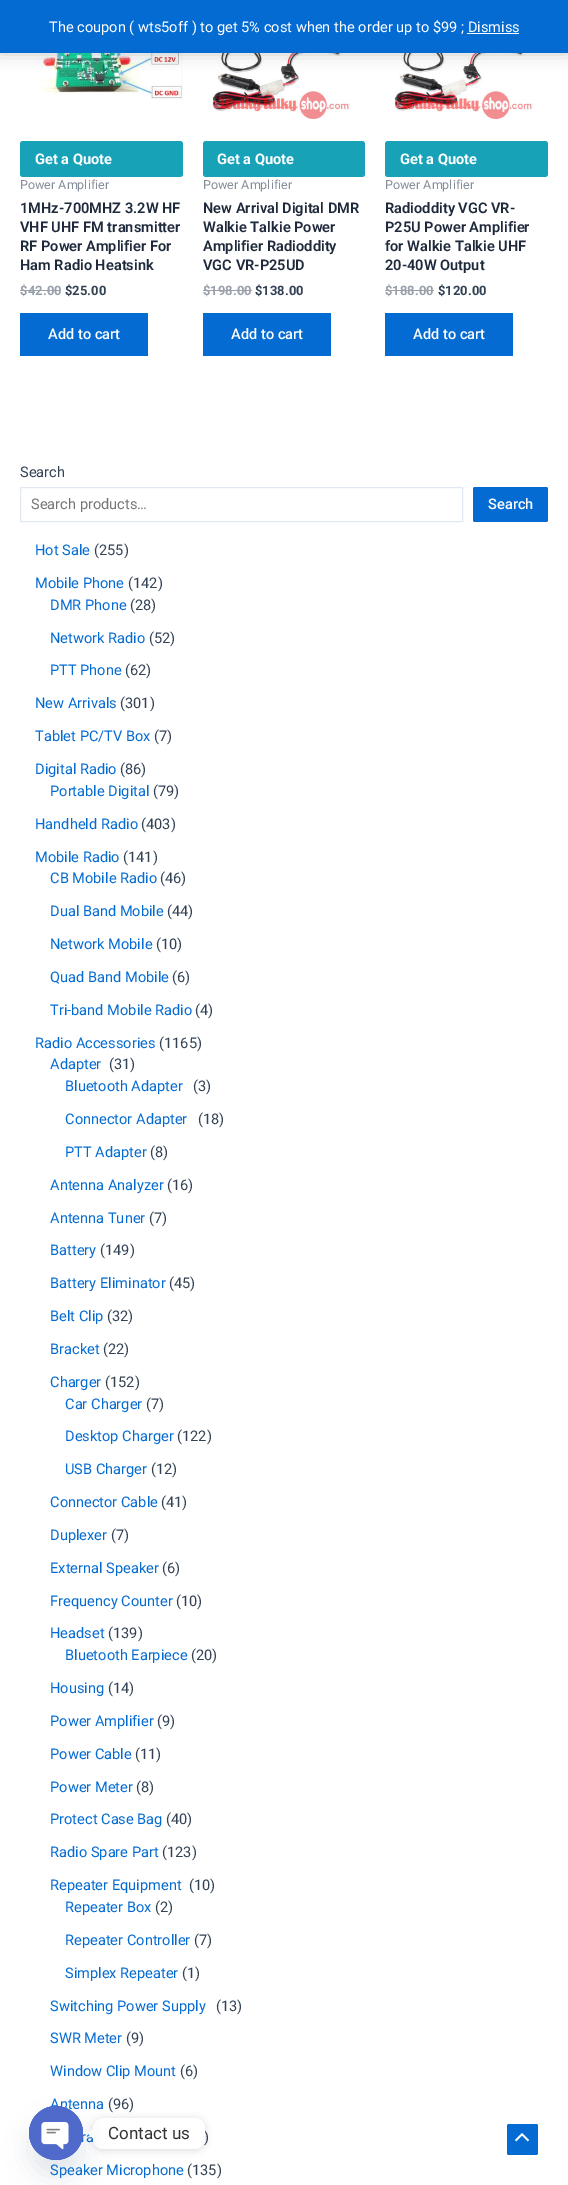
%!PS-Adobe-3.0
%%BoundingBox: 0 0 568 2185
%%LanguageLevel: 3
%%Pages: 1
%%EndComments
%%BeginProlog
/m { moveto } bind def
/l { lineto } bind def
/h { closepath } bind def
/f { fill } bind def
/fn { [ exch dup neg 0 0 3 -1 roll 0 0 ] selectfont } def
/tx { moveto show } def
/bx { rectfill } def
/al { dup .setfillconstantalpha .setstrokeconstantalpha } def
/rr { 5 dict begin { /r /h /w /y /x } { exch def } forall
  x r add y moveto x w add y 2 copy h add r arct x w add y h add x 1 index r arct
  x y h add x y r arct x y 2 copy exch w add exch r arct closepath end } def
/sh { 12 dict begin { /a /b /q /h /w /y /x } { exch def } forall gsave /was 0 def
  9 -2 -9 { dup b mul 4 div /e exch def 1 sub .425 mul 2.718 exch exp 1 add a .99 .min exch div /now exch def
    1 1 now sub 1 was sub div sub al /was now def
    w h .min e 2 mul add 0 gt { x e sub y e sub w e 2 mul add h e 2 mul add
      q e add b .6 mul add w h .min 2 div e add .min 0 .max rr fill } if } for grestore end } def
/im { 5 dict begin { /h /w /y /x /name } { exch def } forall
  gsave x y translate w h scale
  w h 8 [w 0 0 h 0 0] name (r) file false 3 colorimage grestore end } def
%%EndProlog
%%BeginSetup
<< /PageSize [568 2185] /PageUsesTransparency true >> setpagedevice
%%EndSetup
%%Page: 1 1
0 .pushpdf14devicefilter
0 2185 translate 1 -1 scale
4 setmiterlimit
1 setgray
0 0 568 2185 bx
(image0.raw) 20 53 163 47 im
(image1.raw) 212 53 150 66 im
(image2.raw) 394 53 152 66 im
0 setgray
0 1 568 53 0 7.5 0.2 sh
0.016 0.42 0.824 setrgbcolor
0 0 568 53 bx
/Roboto-Regular 14.6 fn
1 setgray
(The coupon \( wts5off \) to get 5% cost when the order up to $99 ; Dismiss) 49 32 tx
467 33 52 1 bx
0.09 0.635 0.722 setrgbcolor
20 141 163 36 3 rr f
/Roboto-Bold 14.6 fn
1 setgray
(Get a Quote) 35 164 tx
/Roboto-Regular 12.5 fn
0.522 0.553 0.6 setrgbcolor
(Power Amplifier) 20 189 tx
/Roboto-SemiBold 14.6 fn
0.118 0.161 0.231 setrgbcolor
(1MHz-700MHZ 3.2W HF) 20 213 tx
(VHF UHF FM transmitter) 20 232 tx
(RF Power Amplifier For) 20 251 tx
(Ham Radio Heatsink) 20 270 tx
/Roboto-Bold 13 fn
0.6 0.627 0.667 setrgbcolor
($) 20 295 tx
20 290 8 1 bx
(42.00) 28 295 tx
28 290 33 1 bx
0.2 0.255 0.333 setrgbcolor
($25.00) 65 295 tx
0.016 0.42 0.824 setrgbcolor
20 313 128 43 bx
/Roboto-Medium 14.6 fn
1 setgray
(Add to cart) 48 339 tx
0.09 0.635 0.722 setrgbcolor
203 141 162 36 3 rr f
/Roboto-Bold 14.6 fn
1 setgray
(Get a Quote) 217 164 tx
/Roboto-Regular 12.5 fn
0.522 0.553 0.6 setrgbcolor
(Power Amplifier) 203 189 tx
/Roboto-SemiBold 14.6 fn
0.118 0.161 0.231 setrgbcolor
(New Arrival Digital DMR) 203 213 tx
(Walkie Talkie Power) 203 232 tx
(Amplifier Radioddity) 203 251 tx
(VGC VR-P25UD) 203 270 tx
/Roboto-Bold 13 fn
0.6 0.627 0.667 setrgbcolor
($198.00) 203 295 tx
203 290 49 1 bx
0.2 0.255 0.333 setrgbcolor
($138.00) 255 295 tx
0.016 0.42 0.824 setrgbcolor
203 313 128 43 bx
/Roboto-Medium 14.6 fn
1 setgray
(Add to cart) 231 339 tx
0.09 0.635 0.722 setrgbcolor
385 141 163 36 3 rr f
/Roboto-Bold 14.6 fn
1 setgray
(Get a Quote) 400 164 tx
/Roboto-Regular 12.5 fn
0.522 0.553 0.6 setrgbcolor
(Power Amplifier) 385 189 tx
/Roboto-SemiBold 14.6 fn
0.118 0.161 0.231 setrgbcolor
(Radioddity VGC VR-) 385 213 tx
(P25U Power Amplifier) 385 232 tx
(for Walkie Talkie UHF) 385 251 tx
(20-40W Output) 385 270 tx
/Roboto-Bold 13 fn
0.6 0.627 0.667 setrgbcolor
($188.00) 385 295 tx
385 290 49 1 bx
0.2 0.255 0.333 setrgbcolor
($120.00) 438 295 tx
0.016 0.42 0.824 setrgbcolor
385 313 128 43 bx
/Roboto-Medium 14.6 fn
1 setgray
(Add to cart) 413 339 tx
/Roboto-Regular 14.6 fn
0.2 0.255 0.333 setrgbcolor
(Search) 20 477 tx
0.886 0.91 0.941 setrgbcolor
20.5 487.5 442 34 rectstroke
0.459 setgray
(Search products…) 31 509 tx
0.016 0.42 0.824 setrgbcolor
473 487 75 35 2 rr f
/Roboto-Medium 14.6 fn
1 setgray
(Search) 488 509 tx
/Roboto-Regular 14.6 fn
0.016 0.42 0.824 setrgbcolor
(Hot Sale) 35 555 tx
0.2 0.255 0.333 setrgbcolor
(\(255\)) 94 555 tx
0.016 0.42 0.824 setrgbcolor
(Mobile Phone) 35 588 tx
0.2 0.255 0.333 setrgbcolor
(\(142\)) 128 588 tx
0.016 0.42 0.824 setrgbcolor
(DMR Phone) 50 610 tx
0.2 0.255 0.333 setrgbcolor
(\(28\)) 130 610 tx
0.016 0.42 0.824 setrgbcolor
(Network Radio) 50 643 tx
0.2 0.255 0.333 setrgbcolor
(\(52\)) 149 643 tx
0.016 0.42 0.824 setrgbcolor
(PTT Phone) 50 675 tx
0.2 0.255 0.333 setrgbcolor
(\(62\)) 125 675 tx
0.016 0.42 0.824 setrgbcolor
(New Arrivals) 35 708 tx
0.2 0.255 0.333 setrgbcolor
(\(301\)) 120 708 tx
0.016 0.42 0.824 setrgbcolor
(Tablet PC/TV Box) 35 741 tx
0.2 0.255 0.333 setrgbcolor
(\(7\)) 154 741 tx
0.016 0.42 0.824 setrgbcolor
(Digital Radio) 35 774 tx
0.2 0.255 0.333 setrgbcolor
(\(86\)) 120 774 tx
0.016 0.42 0.824 setrgbcolor
(Portable Digital) 50 796 tx
0.2 0.255 0.333 setrgbcolor
(\(79\)) 153 796 tx
0.016 0.42 0.824 setrgbcolor
(Handheld Radio) 35 829 tx
0.2 0.255 0.333 setrgbcolor
(\(403\)) 141 829 tx
0.016 0.42 0.824 setrgbcolor
(Mobile Radio) 35 862 tx
0.2 0.255 0.333 setrgbcolor
(\(141\)) 123 862 tx
0.016 0.42 0.824 setrgbcolor
(CB Mobile Radio) 50 883 tx
0.2 0.255 0.333 setrgbcolor
(\(46\)) 160 883 tx
0.016 0.42 0.824 setrgbcolor
(Dual Band Mobile) 50 916 tx
0.2 0.255 0.333 setrgbcolor
(\(44\)) 167 916 tx
0.016 0.42 0.824 setrgbcolor
(Network Mobile) 50 949 tx
0.2 0.255 0.333 setrgbcolor
(\(10\)) 156 949 tx
0.016 0.42 0.824 setrgbcolor
(Quad Band Mobile) 50 982 tx
0.2 0.255 0.333 setrgbcolor
(\(6\)) 172 982 tx
0.016 0.42 0.824 setrgbcolor
(Tri-band Mobile Radio) 50 1015 tx
0.2 0.255 0.333 setrgbcolor
(\(4\)) 195 1015 tx
0.016 0.42 0.824 setrgbcolor
(Radio Accessories) 35 1048 tx
0.2 0.255 0.333 setrgbcolor
(\(1165\)) 159 1048 tx
0.016 0.42 0.824 setrgbcolor
(Adapter) 50 1069 tx
0.2 0.255 0.333 setrgbcolor
(\(31\)) 109 1069 tx
0.016 0.42 0.824 setrgbcolor
(Bluetooth Adapter) 65 1091 tx
0.2 0.255 0.333 setrgbcolor
(\(3\)) 193 1091 tx
0.016 0.42 0.824 setrgbcolor
(Connector Adapter) 65 1124 tx
0.2 0.255 0.333 setrgbcolor
(\(18\)) 198 1124 tx
0.016 0.42 0.824 setrgbcolor
(PTT Adapter) 65 1157 tx
0.2 0.255 0.333 setrgbcolor
(\(8\)) 150 1157 tx
0.016 0.42 0.824 setrgbcolor
(Antenna Analyzer) 50 1190 tx
0.2 0.255 0.333 setrgbcolor
(\(16\)) 167 1190 tx
0.016 0.42 0.824 setrgbcolor
(Antenna Tuner) 50 1223 tx
0.2 0.255 0.333 setrgbcolor
(\(7\)) 149 1223 tx
0.016 0.42 0.824 setrgbcolor
(Battery) 50 1255 tx
0.2 0.255 0.333 setrgbcolor
(\(149\)) 100 1255 tx
0.016 0.42 0.824 setrgbcolor
(Battery Eliminator) 50 1288 tx
0.2 0.255 0.333 setrgbcolor
(\(45\)) 169 1288 tx
0.016 0.42 0.824 setrgbcolor
(Belt Clip) 50 1321 tx
0.2 0.255 0.333 setrgbcolor
(\(32\)) 107 1321 tx
0.016 0.42 0.824 setrgbcolor
(Bracket) 50 1354 tx
0.2 0.255 0.333 setrgbcolor
(\(22\)) 103 1354 tx
0.016 0.42 0.824 setrgbcolor
(Charger) 50 1387 tx
0.2 0.255 0.333 setrgbcolor
(\(152\)) 105 1387 tx
0.016 0.42 0.824 setrgbcolor
(Car Charger) 65 1409 tx
0.2 0.255 0.333 setrgbcolor
(\(7\)) 146 1409 tx
0.016 0.42 0.824 setrgbcolor
(Desktop Charger) 65 1441 tx
0.2 0.255 0.333 setrgbcolor
(\(122\)) 177 1441 tx
0.016 0.42 0.824 setrgbcolor
(USB Charger) 65 1474 tx
0.2 0.255 0.333 setrgbcolor
(\(12\)) 151 1474 tx
0.016 0.42 0.824 setrgbcolor
(Connector Cable) 50 1507 tx
0.2 0.255 0.333 setrgbcolor
(\(41\)) 161 1507 tx
0.016 0.42 0.824 setrgbcolor
(Duplexer) 50 1540 tx
0.2 0.255 0.333 setrgbcolor
(\(7\)) 111 1540 tx
0.016 0.42 0.824 setrgbcolor
(External Speaker) 50 1573 tx
0.2 0.255 0.333 setrgbcolor
(\(6\)) 162 1573 tx
0.016 0.42 0.824 setrgbcolor
(Frequency Counter) 50 1606 tx
0.2 0.255 0.333 setrgbcolor
(\(10\)) 176 1606 tx
0.016 0.42 0.824 setrgbcolor
(Headset) 50 1638 tx
0.2 0.255 0.333 setrgbcolor
(\(139\)) 108 1638 tx
0.016 0.42 0.824 setrgbcolor
(Bluetooth Earpiece) 65 1660 tx
0.2 0.255 0.333 setrgbcolor
(\(20\)) 191 1660 tx
0.016 0.42 0.824 setrgbcolor
(Housing) 50 1693 tx
0.2 0.255 0.333 setrgbcolor
(\(14\)) 108 1693 tx
0.016 0.42 0.824 setrgbcolor
(Power Amplifier) 50 1726 tx
0.2 0.255 0.333 setrgbcolor
(\(9\)) 157 1726 tx
0.016 0.42 0.824 setrgbcolor
(Power Cable) 50 1759 tx
0.2 0.255 0.333 setrgbcolor
(\(11\)) 135 1759 tx
0.016 0.42 0.824 setrgbcolor
(Power Meter) 50 1792 tx
0.2 0.255 0.333 setrgbcolor
(\(8\)) 136 1792 tx
0.016 0.42 0.824 setrgbcolor
(Protect Case Bag) 50 1824 tx
0.2 0.255 0.333 setrgbcolor
(\(40\)) 166 1824 tx
0.016 0.42 0.824 setrgbcolor
(Radio Spare Part) 50 1857 tx
0.2 0.255 0.333 setrgbcolor
(\(123\)) 162 1857 tx
0.016 0.42 0.824 setrgbcolor
(Repeater Equipment) 50 1890 tx
0.2 0.255 0.333 setrgbcolor
(\(10\)) 189 1890 tx
0.016 0.42 0.824 setrgbcolor
(Repeater Box) 65 1912 tx
0.2 0.255 0.333 setrgbcolor
(\(2\)) 155 1912 tx
0.016 0.42 0.824 setrgbcolor
(Repeater Controller) 65 1945 tx
0.2 0.255 0.333 setrgbcolor
(\(7\)) 194 1945 tx
0.016 0.42 0.824 setrgbcolor
(Simplex Repeater) 65 1978 tx
0.2 0.255 0.333 setrgbcolor
(\(1\)) 182 1978 tx
0.016 0.42 0.824 setrgbcolor
(Switching Power Supply) 50 2011 tx
0.2 0.255 0.333 setrgbcolor
(\(13\)) 216 2011 tx
0.016 0.42 0.824 setrgbcolor
(SWR Meter) 50 2043 tx
0.2 0.255 0.333 setrgbcolor
(\(9\)) 126 2043 tx
0.016 0.42 0.824 setrgbcolor
(Window Clip Mount) 50 2076 tx
0.2 0.255 0.333 setrgbcolor
(\(6\)) 180 2076 tx
0.016 0.42 0.824 setrgbcolor
(Antenna) 50 2109 tx
0.2 0.255 0.333 setrgbcolor
(\(96\)) 108 2109 tx
0.016 0.42 0.824 setrgbcolor
(ra) 81 2142 tx
0.2 0.255 0.333 setrgbcolor
(\)) 204 2142 tx
0.016 0.42 0.824 setrgbcolor
(Speaker Microphone) 50 2175 tx
0.2 0.255 0.333 setrgbcolor
(\(135\)) 187 2175 tx
0 setgray
93 2119 112 31 10 4 0.15 sh
1 setgray
93 2118 112 31 10 rr f
93 2128.5 m 93 2138.5 l 88 2133.5 l h f
0.286 0.408 0.494 setrgbcolor
29 2122 54 54 27 12 0.16 sh
(image3.raw) 29 2106 54 54 im
/Roboto-Regular 17 fn
0.2 setgray
(Contact us) 108 2139 tx
0.016 0.42 0.824 setrgbcolor
507 2124 31 31 2 rr f
(image4.raw) 515 2133 15 9 im
.poppdf14devicefilter showpage
%%EOF
